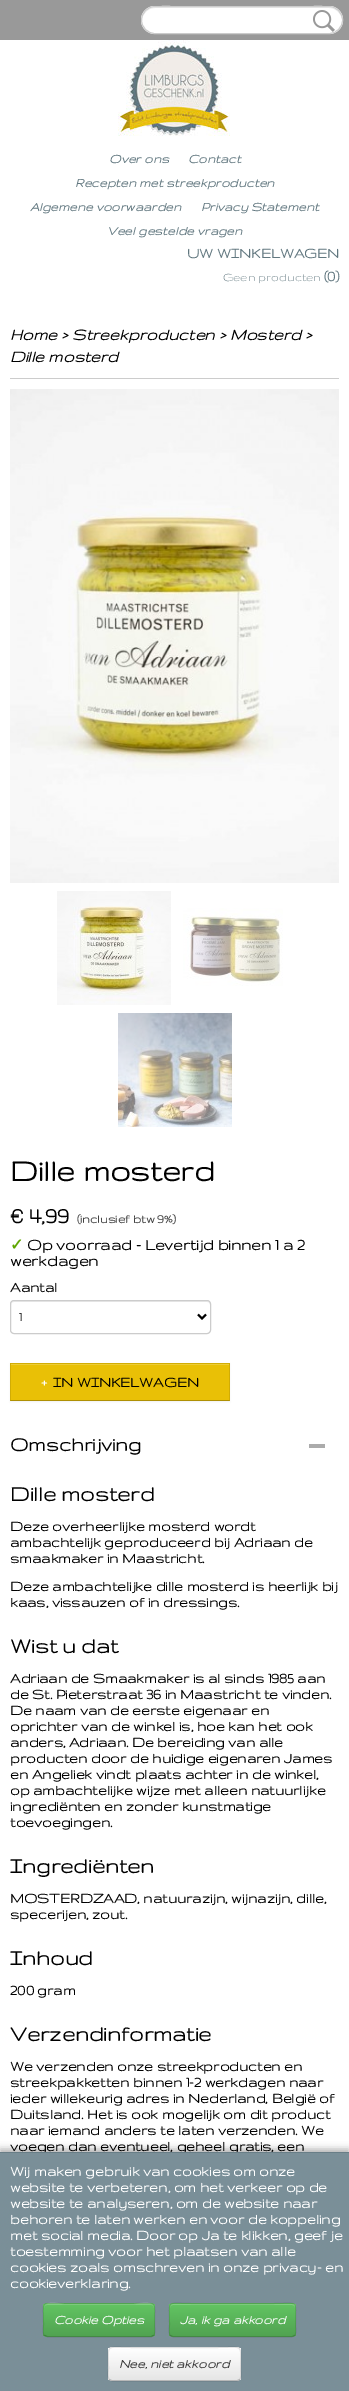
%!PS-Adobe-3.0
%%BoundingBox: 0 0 349 2391
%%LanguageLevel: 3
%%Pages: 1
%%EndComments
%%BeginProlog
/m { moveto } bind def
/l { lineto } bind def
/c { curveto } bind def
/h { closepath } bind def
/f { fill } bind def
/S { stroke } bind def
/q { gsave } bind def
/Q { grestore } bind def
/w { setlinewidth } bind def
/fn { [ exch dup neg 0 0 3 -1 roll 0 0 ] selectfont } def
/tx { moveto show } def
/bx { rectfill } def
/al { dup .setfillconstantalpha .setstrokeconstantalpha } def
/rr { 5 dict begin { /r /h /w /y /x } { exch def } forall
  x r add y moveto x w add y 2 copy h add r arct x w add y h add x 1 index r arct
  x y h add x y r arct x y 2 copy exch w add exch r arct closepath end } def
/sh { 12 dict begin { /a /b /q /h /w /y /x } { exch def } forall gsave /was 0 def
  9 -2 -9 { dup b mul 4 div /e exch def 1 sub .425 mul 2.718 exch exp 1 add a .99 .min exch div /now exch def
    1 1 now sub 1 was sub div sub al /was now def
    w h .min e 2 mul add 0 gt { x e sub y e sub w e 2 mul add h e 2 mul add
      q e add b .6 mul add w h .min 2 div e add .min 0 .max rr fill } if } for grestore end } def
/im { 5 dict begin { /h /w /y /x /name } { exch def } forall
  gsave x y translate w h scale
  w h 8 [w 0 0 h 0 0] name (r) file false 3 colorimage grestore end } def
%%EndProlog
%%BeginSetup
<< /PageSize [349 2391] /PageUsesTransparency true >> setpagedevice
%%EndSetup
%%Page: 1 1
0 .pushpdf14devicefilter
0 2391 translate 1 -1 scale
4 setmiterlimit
1 setgray
0 0 349 2391 bx
0.6 setgray
0 0 349 40 bx
1 setgray
141 6 202 28 14 rr f
0.925 setgray
155 8 m 329 8 l 336 8 342 14 342 21 c 343 0 308 7 300 7 c 184 7 l 176 7 141 0 142 21 c 142 14 148 8 155 8 c h f
0.8 setgray
141.5 6.5 201 27 13.5 rr S
(image0.raw) 313 10 22 22 im
(image1.raw) 118 40 112 96 im
/Gruppo-BoldItalic 14 fn
0.38 0.467 0.498 setrgbcolor
(Over ons) 109 163 tx
(Contact) 188 163 tx
(Recepten met streekproducten) 75 187 tx
(Algemene voorwaarden) 30 211 tx
(Privacy Statement) 201 211 tx
(Veel gestelde vragen) 107 235 tx
/Gruppo-Bold 16 fn
(UW WINKELWAGEN) 187 258 tx
/Gruppo-Regular 13 fn
(Geen producten) 223 281 tx
/Gruppo-Bold 16 fn
(\(0\)) 324 281 tx
0.8 setgray
10 378 329 1 bx
/Gruppo-BoldItalic 18 fn
0 setgray
(Home > Streekproducten > Mosterd >) 10 340 tx
(Dille mosterd) 10 362 tx
(image2.raw) 10 389 329 494 im
(image3.raw) 57 891 114 114 im
(image4.raw) 183 908 100 78 im
(image5.raw) 118 1013 114 114 im
/Gruppo-Bold 34 fn
(Dille mosterd) 10 1181 tx
/Gruppo-Bold 24 fn
(€ 4,99) 10 1223 tx
/Gruppo-Bold 13.5 fn
0.251 setgray
(\(inclusief btw 9%\)) 77 1223 tx
/DejaVuSans-Bold 16 fn
0.369 0.651 0 setrgbcolor
(✓) 10 1250 tx
/Gruppo-Bold 17.6 fn
0 setgray
(Op voorraad - Levertijd binnen 1 a 2) 27 1250 tx
(werkdagen) 10 1266 tx
/Gruppo-Bold 16 fn
(Aantal) 10 1292 tx
0.925 setgray
14 1302 m 207 1302 l 209 1302 210 1303 210 1305 c 210 1303 209 1301 207 1301 c 14 1301 l 12 1301 11 1303 11 1305 c 11 1303 12 1302 14 1302 c h f
0.8 setgray
10.5 1300.5 200 33 3.5 rr S
0 setgray
2 w
198 1314.5 m 202 1318.5 l 206 1314.5 l S
/Gruppo-Bold 14 fn
(1) 19 1321 tx
10 1364 220 38 0 1 0.05 sh
0.914 0.753 0.024 setrgbcolor
10 1363 220 38 bx
0.929 0.804 0.22 setrgbcolor
11 1364 218 1 bx
0.824 0.678 0.02 setrgbcolor
10 1363 m 230 1363 l 229 1364 l 11 1364 l h f
0.1 al
0 setgray
230 1363 m 230 1401 l 229 1400 l 229 1364 l h f
0.25 al
230 1401 m 10 1401 l 11 1400 l 229 1400 l h f
0.1 al
10 1401 m 10 1363 l 11 1364 l 11 1400 l h f
/Gruppo-Bold 16 fn
1 al
1 setgray
(+) 41 1387 tx
0 setgray
(IN WINKELWAGEN) 53 1387 tx
0.671 setgray
309 1444 16 4 bx
/Gruppo-Bold 22 fn
0 setgray
(Omschrijving) 10 1451 tx
/Gruppo-Bold 24 fn
(Dille mosterd) 10 1501 tx
/Gruppo-Bold 16 fn
(Deze overheerlijke mosterd wordt) 10 1531 tx
(ambachtelijk geproduceerd bij Adriaan de) 10 1547 tx
(smaakmaker in Maastricht.) 10 1563 tx
(Deze ambachtelijke dille mosterd is heerlijk bij) 10 1591 tx
(kaas, vissauzen of in dressings.) 10 1607 tx
/Gruppo-Bold 24 fn
(Wist u dat) 10 1653 tx
/Gruppo-Bold 16 fn
(Adriaan de Smaakmaker is al sinds 1985 aan) 10 1683 tx
(de St. Pieterstraat 36 in Maastricht te vinden.) 10 1699 tx
(De naam van de eerste eigenaar en) 10 1715 tx
(oprichter van de winkel is, hoe kan het ook) 10 1731 tx
(anders, Adriaan. De bereiding van alle) 10 1747 tx
(producten door de huidige eigenaren James) 10 1763 tx
(en Angeliek vindt plaats achter in de winkel,) 10 1779 tx
(op ambachtelijke wijze met alleen natuurlijke) 10 1795 tx
(ingrediënten en zonder kunstmatige) 10 1811 tx
(toevoegingen.) 10 1827 tx
/Gruppo-Bold 24 fn
(Ingrediënten) 10 1873 tx
/Gruppo-Bold 16 fn
(MOSTERDZAAD, natuurazijn, wijnazijn, dille,) 10 1903 tx
(specerijen, zout.) 10 1919 tx
/Gruppo-Bold 24 fn
(Inhoud) 10 1965 tx
/Gruppo-Bold 16 fn
(200 gram) 10 1995 tx
/Gruppo-Bold 24 fn
(Verzendinformatie) 10 2041 tx
/Gruppo-Bold 16 fn
(We verzenden onze streekproducten en) 10 2071 tx
(streekpakketten binnen 1-2 werkdagen naar) 10 2087 tx
(ieder willekeurig adres in Nederland, België of) 10 2103 tx
(Duitsland. Het is ook mogelijk om dit product) 10 2119 tx
(naar iemand anders te laten verzenden. We) 10 2135 tx
(voegen dan eventueel, geheel gratis, een) 10 2151 tx
0 2149 349 239 0 3.5 0.3 sh
0.478 0.561 0.596 setrgbcolor
0 2153 349 238 bx
0.412 0.494 0.529 setrgbcolor
0 2152 349 1 bx
1 setgray
(Wij maken gebruik van cookies om onze) 10 2176 tx
(website te verbeteren, om het verkeer op de) 10 2192 tx
(website te analyseren, om de website naar) 10 2208 tx
(behoren te laten werken en voor de koppeling) 10 2224 tx
(met social media. Door op Ja te klikken, geef je) 10 2240 tx
(toestemming voor het plaatsen van alle) 10 2256 tx
(cookies zoals omschreven in onze privacy- en) 10 2272 tx
(cookieverklaring.) 10 2288 tx
0.357 0.718 0.357 setrgbcolor
43 2303 112 34 4 rr f
q
43 2303 112 34 4 rr clip newpath
q 43 2304 m 155 2304 l 155 2336 l 43 2336 l h clip newpath
<< /ShadingType 2 /ColorSpace /DeviceRGB /Coords [99 2304 99 2336] /Extend [true true] /Function << /FunctionType 2 /Domain [0 1] /C0 [0.384 0.769 0.384] /C1 [0.318 0.639 0.318] /N 1 >> >> shfill Q
Q
0.2 al
1 setgray
47 2305 m 151 2305 l 153 2305 154 2306 154 2308 c 154 2299 136 2304 134 2304 c 64 2304 l 62 2304 44 2299 44 2308 c 44 2306 45 2305 47 2305 c h f
0.25 al
0 setgray
1 w
153.5 2335.5 m 151.5 2336.5 l 64.5 2336.5 l 47 2336.5 l 44.5 2335.5 l S
0.1 al
44.5 2335.5 m 42 2333 43.5 2327 43.5 2324.5 c 43.5 2299.5 39 2303.5 64.5 2303.5 c 133.5 2303.5 l 159 2303.5 154.5 2299.5 154.5 2324.5 c 154.5 2327 156 2333 153.5 2335.5 c S
/Gruppo-BoldItalic 14 fn
1 al
1 setgray
(Cookie Opties) 54 2324 tx
0.357 0.718 0.357 setrgbcolor
169 2303 127 34 4 rr f
q
169 2303 127 34 4 rr clip newpath
q 169 2304 m 296 2304 l 296 2336 l 169 2336 l h clip newpath
<< /ShadingType 2 /ColorSpace /DeviceRGB /Coords [233 2304 233 2336] /Extend [true true] /Function << /FunctionType 2 /Domain [0 1] /C0 [0.384 0.769 0.384] /C1 [0.318 0.639 0.318] /N 1 >> >> shfill Q
Q
0.506 0.812 0.506 setrgbcolor
173 2305 m 292 2305 l 294 2305 295 2306 295 2308 c 295 2306 295 2304 293 2304 c 173 2304 l 171 2304 170 2306 170 2308 c 170 2306 171 2305 173 2305 c h f
0.25 al
0 setgray
294.5 2335.5 m 294 2336 293 2336.5 292 2336.5 c 173 2336.5 l 172 2336.5 171 2336 170.5 2335.5 c S
0.1 al
170.5 2335.5 m 168 2333 169.5 2327 169.5 2324.5 c 169.5 2298.5 165 2303.5 193 2303.5 c 272 2303.5 l 300 2303.5 295.5 2298.5 295.5 2324.5 c 295.5 2327 297 2333 294.5 2335.5 c S
1 al
1 setgray
(Ja, ik ga akkoord) 180 2324 tx
0.961 setgray
108 2347 133 34 4 rr f
q
108 2347 133 34 4 rr clip newpath
q 108 2348 m 241 2348 l 241 2380 l 108 2380 l h clip newpath
<< /ShadingType 2 /ColorSpace /DeviceRGB /Coords [175 2348 175 2380] /Extend [true true] /Function << /FunctionType 2 /Domain [0 1] /C0 [1 1 1] /C1 [0.902 0.902 0.902] /N 1 >> >> shfill Q
Q
0.25 al
0 setgray
239.5 2379.5 m 239 2380 238 2380.5 237 2380.5 c 112 2380.5 l 111 2380.5 110 2380 109.5 2379.5 c S
0.1 al
109.5 2379.5 m 107 2377 108.5 2371 108.5 2368.5 c 108.5 2342.5 104 2347.5 133 2347.5 c 216 2347.5 l 245 2347.5 240.5 2342.5 240.5 2368.5 c 240.5 2371 242 2377 239.5 2379.5 c S
1 al
0.2 setgray
(Nee, niet akkoord) 119 2368 tx
.poppdf14devicefilter showpage
%%EOF
